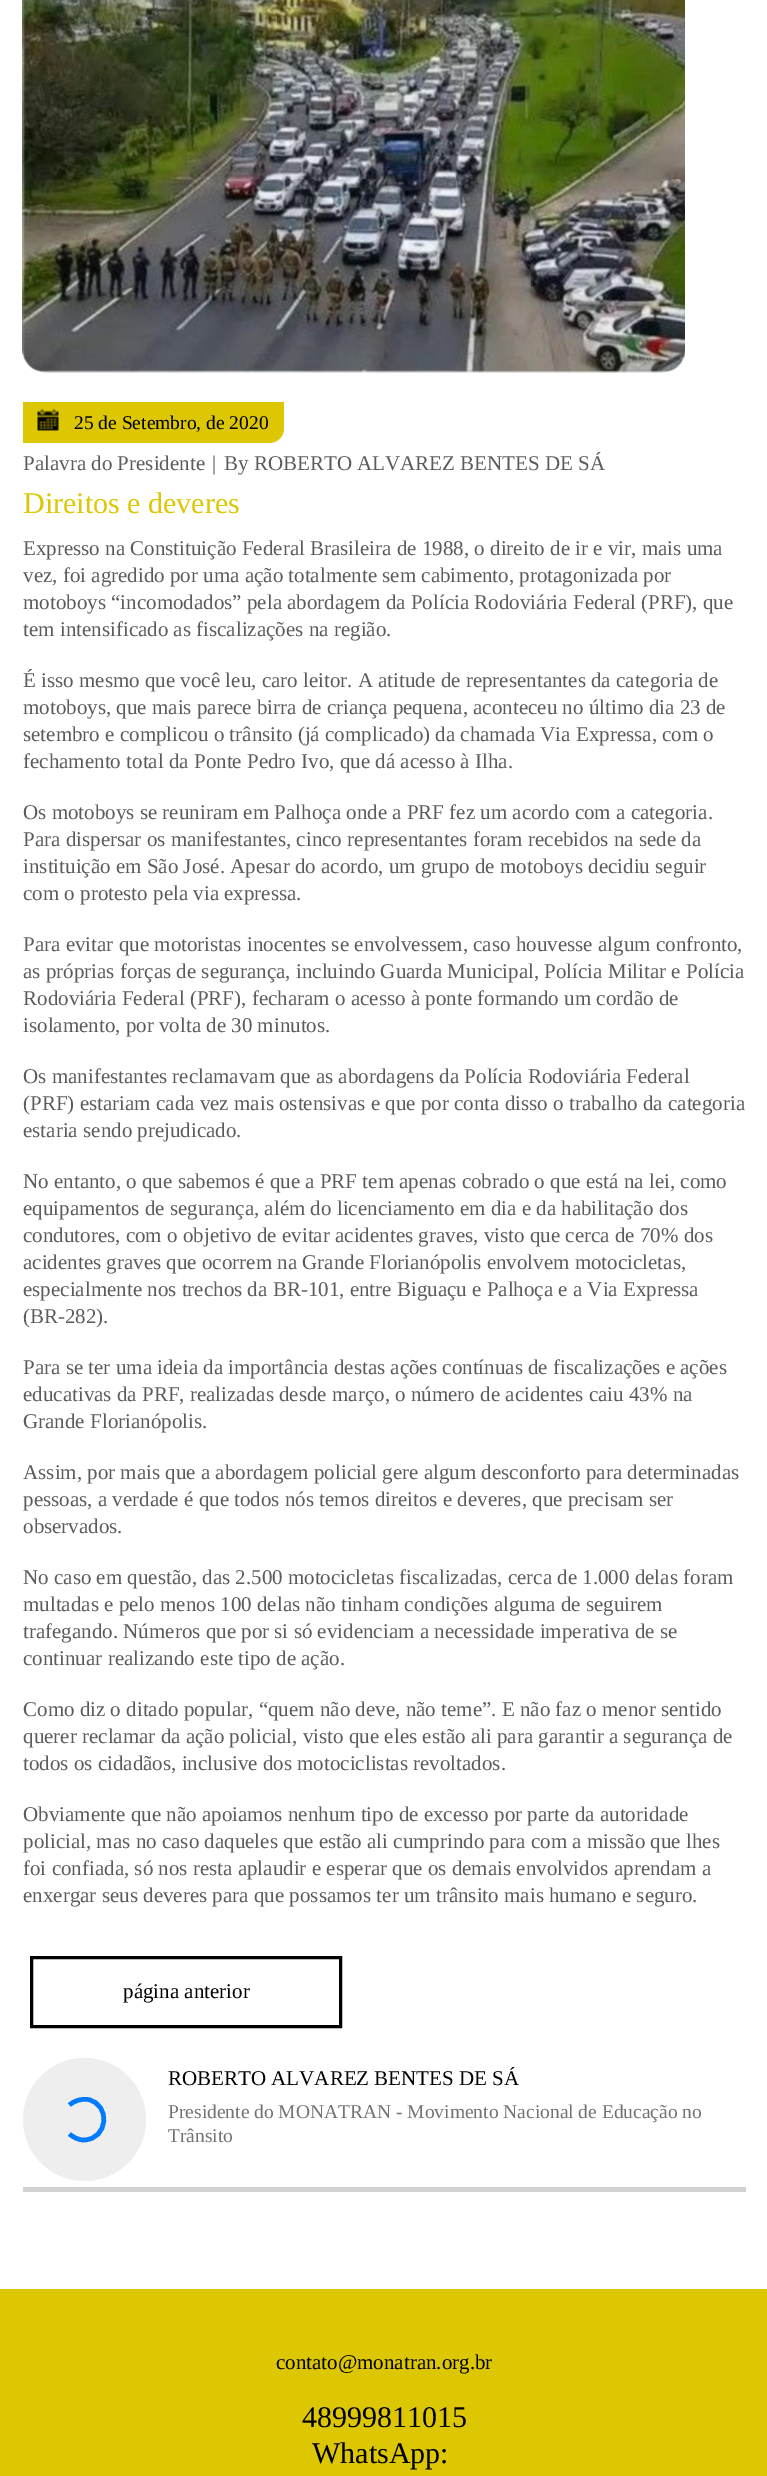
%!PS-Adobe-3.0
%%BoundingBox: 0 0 767 2476
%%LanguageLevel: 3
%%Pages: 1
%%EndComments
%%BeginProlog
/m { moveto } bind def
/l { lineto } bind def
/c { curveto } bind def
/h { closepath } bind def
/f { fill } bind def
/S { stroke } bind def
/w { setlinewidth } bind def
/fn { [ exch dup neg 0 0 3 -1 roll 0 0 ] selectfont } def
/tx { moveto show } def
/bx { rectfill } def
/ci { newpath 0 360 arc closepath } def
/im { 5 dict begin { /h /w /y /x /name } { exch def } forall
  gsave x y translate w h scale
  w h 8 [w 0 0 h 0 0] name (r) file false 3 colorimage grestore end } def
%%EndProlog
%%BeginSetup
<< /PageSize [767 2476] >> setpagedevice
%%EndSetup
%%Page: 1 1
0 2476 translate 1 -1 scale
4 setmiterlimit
1 setgray
0 0 767 2476 bx
(image0.raw) 22 0 663 373 im
0.867 0.78 0.012 setrgbcolor
23 402 m 284 402 l 284 428 l 284 436.5 277.5 443 269 443 c 23 443 l h f
(image1.raw) 37 409 22 22 im
/LiberationSerif-Regular 19.5 fn
0 setgray
(25 de Setembro, de 2020) 74 429 tx
/LiberationSerif-Regular 21 fn
0.357 setgray
(Palavra do Presidente) 23 470 tx
(|) 212 470 tx
(By ROBERTO ALVAREZ BENTES DE SÁ) 224 470 tx
/LiberationSerif-Regular 30 fn
0.867 0.78 0.012 setrgbcolor
(Direitos e deveres) 23 513 tx
/LiberationSerif-Regular 21 fn
0.357 setgray
(Expresso na Constituição Federal Brasileira de 1988, o direito de ir e vir, mais uma) 23 555 tx
(vez, foi agredido por uma ação totalmente sem cabimento, protagonizada por) 23 582 tx
(motoboys “incomodados” pela abordagem da Polícia Rodoviária Federal \(PRF\), que) 23 609 tx
(tem intensificado as fiscalizações na região.) 23 636 tx
(É isso mesmo que você leu, caro leitor. A atitude de representantes da categoria de) 23 687 tx
(motoboys, que mais parece birra de criança pequena, aconteceu no último dia 23 de) 23 714 tx
(setembro e complicou o trânsito \(já complicado\) da chamada Via Expressa, com o) 23 741 tx
(fechamento total da Ponte Pedro Ivo, que dá acesso à Ilha.) 23 768 tx
(Os motoboys se reuniram em Palhoça onde a PRF fez um acordo com a categoria.) 23 819 tx
(Para dispersar os manifestantes, cinco representantes foram recebidos na sede da) 23 846 tx
(instituição em São José. Apesar do acordo, um grupo de motoboys decidiu seguir) 23 873 tx
(com o protesto pela via expressa.) 23 900 tx
(Para evitar que motoristas inocentes se envolvessem, caso houvesse algum confronto,) 23 951 tx
(as próprias forças de segurança, incluindo Guarda Municipal, Polícia Militar e Polícia) 23 978 tx
(Rodoviária Federal \(PRF\), fecharam o acesso à ponte formando um cordão de) 23 1005 tx
(isolamento, por volta de 30 minutos.) 23 1032 tx
(Os manifestantes reclamavam que as abordagens da Polícia Rodoviária Federal) 23 1083 tx
(\(PRF\) estariam cada vez mais ostensivas e que por conta disso o trabalho da categoria) 23 1110 tx
(estaria sendo prejudicado.) 23 1137 tx
(No entanto, o que sabemos é que a PRF tem apenas cobrado o que está na lei, como) 23 1188 tx
(equipamentos de segurança, além do licenciamento em dia e da habilitação dos) 23 1215 tx
(condutores, com o objetivo de evitar acidentes graves, visto que cerca de 70% dos) 23 1242 tx
(acidentes graves que ocorrem na Grande Florianópolis envolvem motocicletas,) 23 1269 tx
(especialmente nos trechos da BR-101, entre Biguaçu e Palhoça e a Via Expressa) 23 1296 tx
(\(BR-282\).) 23 1323 tx
(Para se ter uma ideia da importância destas ações contínuas de fiscalizações e ações) 23 1374 tx
(educativas da PRF, realizadas desde março, o número de acidentes caiu 43% na) 23 1401 tx
(Grande Florianópolis.) 23 1428 tx
(Assim, por mais que a abordagem policial gere algum desconforto para determinadas) 23 1479 tx
(pessoas, a verdade é que todos nós temos direitos e deveres, que precisam ser) 23 1506 tx
(observados.) 23 1533 tx
(No caso em questão, das 2.500 motocicletas fiscalizadas, cerca de 1.000 delas foram) 23 1584 tx
(multadas e pelo menos 100 delas não tinham condições alguma de seguirem) 23 1611 tx
(trafegando. Números que por si só evidenciam a necessidade imperativa de se) 23 1638 tx
(continuar realizando este tipo de ação.) 23 1665 tx
(Como diz o ditado popular, “quem não deve, não teme”. E não faz o menor sentido) 23 1716 tx
(querer reclamar da ação policial, visto que eles estão ali para garantir a segurança de) 23 1743 tx
(todos os cidadãos, inclusive dos motociclistas revoltados.) 23 1770 tx
(Obviamente que não apoiamos nenhum tipo de excesso por parte da autoridade) 23 1821 tx
(policial, mas no caso daqueles que estão ali cumprindo para com a missão que lhes) 23 1848 tx
(foi confiada, só nos resta aplaudir e esperar que os demais envolvidos aprendam a) 23 1875 tx
(enxergar seus deveres para que possamos ter um trânsito mais humano e seguro.) 23 1902 tx
0 setgray
3 w
31.5 1957.5 309 69 rectstroke
(página anterior) 123 1998 tx
0.82 setgray
23 2187 723 5 bx
0.933 setgray
84.5 2119.5 61.5 ci f
0 0.482 1 setrgbcolor
4.5 w
69.5 2105 m 74.5 2100.5 81.5 2098.5 88 2099.5 c 111.5 2104.5 108 2139.5 84 2140 c 78.5 2140 73.5 2137.5 69.5 2134 c S
0 setgray
(ROBERTO ALVAREZ BENTES DE SÁ) 168 2085 tx
/LiberationSerif-Regular 19.5 fn
0.447 setgray
(Presidente do MONATRAN - Movimento Nacional de Educação no) 168 2118 tx
(Trânsito) 168 2142 tx
0.867 0.78 0.012 setrgbcolor
0 2289 767 187 bx
/LiberationSerif-Regular 21 fn
0 setgray
(contato@monatran.org.br) 276 2369 tx
/LiberationSerif-Regular 30 fn
(48999811015) 302 2427 tx
(WhatsApp:) 312 2463 tx
showpage
%%EOF
